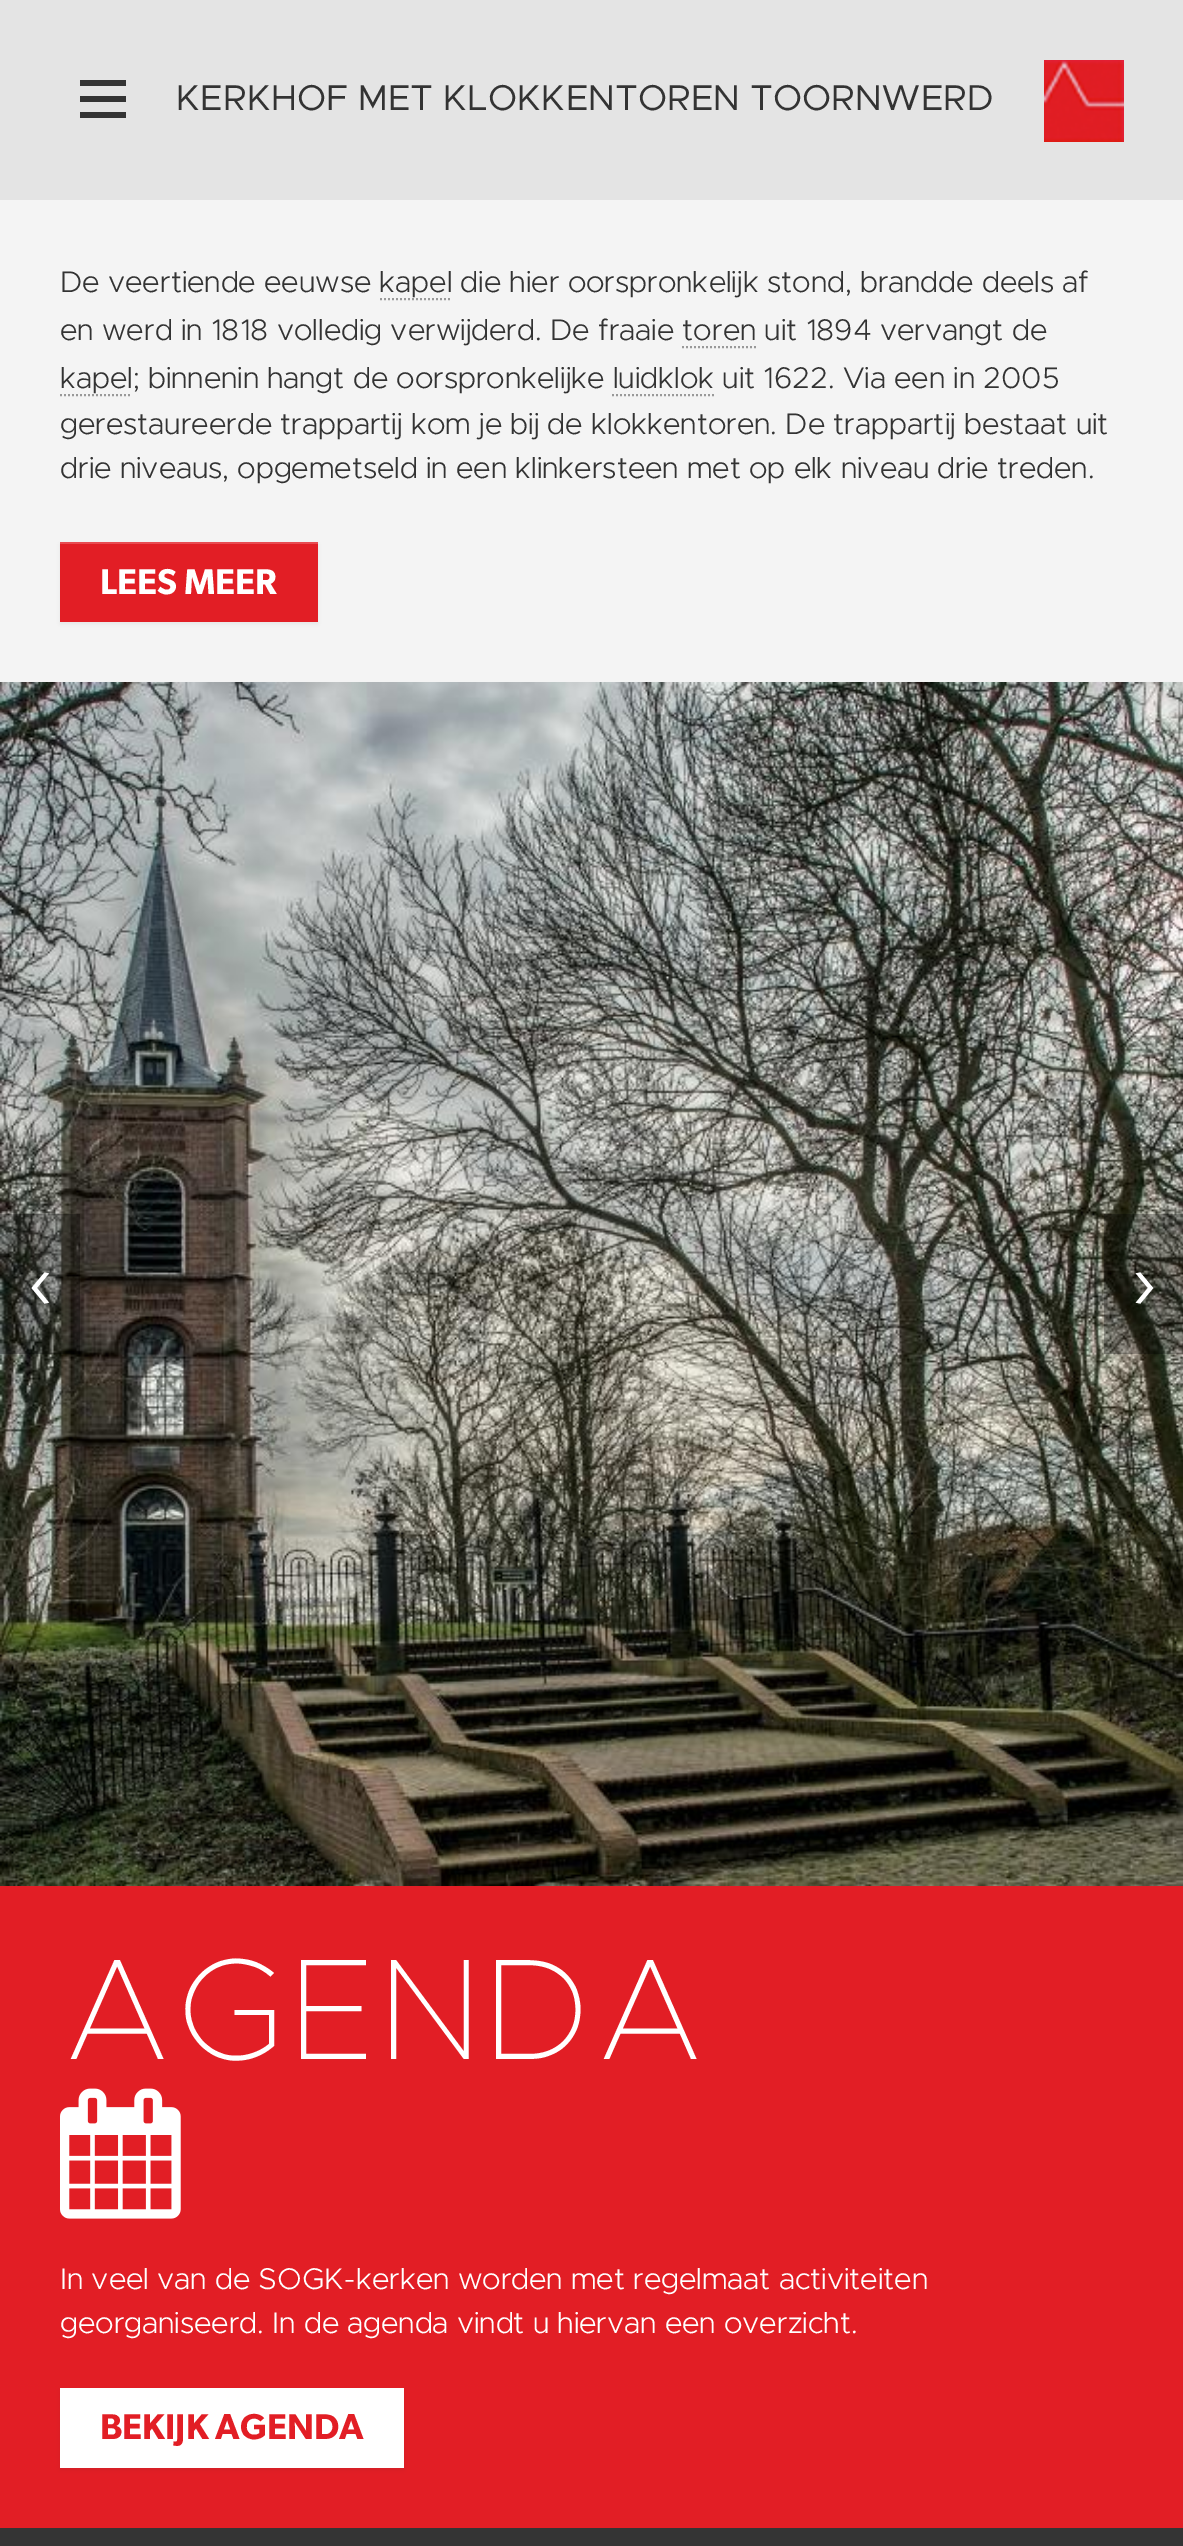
%!PS-Adobe-3.0
%%BoundingBox: 0 0 1183 2546
%%LanguageLevel: 3
%%Pages: 1
%%EndComments
%%BeginProlog
/m { moveto } bind def
/l { lineto } bind def
/S { stroke } bind def
/w { setlinewidth } bind def
/fn { [ exch dup neg 0 0 3 -1 roll 0 0 ] selectfont } def
/tx { moveto show } def
/bx { rectfill } def
/al { dup .setfillconstantalpha .setstrokeconstantalpha } def
/rr { 5 dict begin { /r /h /w /y /x } { exch def } forall
  x r add y moveto x w add y 2 copy h add r arct x w add y h add x 1 index r arct
  x y h add x y r arct x y 2 copy exch w add exch r arct closepath end } def
/sh { 12 dict begin { /a /b /q /h /w /y /x } { exch def } forall gsave /was 0 def
  9 -2 -9 { dup b mul 4 div /e exch def 1 sub .425 mul 2.718 exch exp 1 add a .99 .min exch div /now exch def
    1 1 now sub 1 was sub div sub al /was now def
    w h .min e 2 mul add 0 gt { x e sub y e sub w e 2 mul add h e 2 mul add
      q e add b .6 mul add w h .min 2 div e add .min 0 .max rr fill } if } for grestore end } def
/im { 5 dict begin { /h /w /y /x /name } { exch def } forall
  gsave x y translate w h scale
  w h 8 [w 0 0 h 0 0] name (r) file false 3 colorimage grestore end } def
%%EndProlog
%%BeginSetup
<< /PageSize [1183 2546] /PageUsesTransparency true >> setpagedevice
%%EndSetup
%%Page: 1 1
0 .pushpdf14devicefilter
0 2546 translate 1 -1 scale
4 setmiterlimit
0.957 setgray
0 0 1183 2546 bx
0.894 setgray
0 0 1183 200 bx
0.204 setgray
80 80 46 6 bx
80 96 46 6 bx
80 112 46 6 bx
/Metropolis-Regular 36 fn
0.2 setgray
(KERKHOF MET KLOKKENTOREN TOORNWERD) 176 110 tx
(image0.raw) 1044 60 80 82 im
/Metropolis-Light 30 fn
(De veertiende eeuwse kapel die hier oorspronkelijk stond, brandde deels af) 60 292 tx
0.6 setgray
2 w
[2 2] 0 setdash
380 299 m 452 299 l S
0.2 setgray
(en werd in 1818 volledig verwijderd. De fraaie toren uit 1894 vervangt de) 60 340 tx
0.6 setgray
682 347 m 756 347 l S
0.2 setgray
(kapel; binnenin hangt de oorspronkelijke luidklok uit 1622. Via een in 2005) 60 388 tx
0.6 setgray
60 395 m 132 395 l S
612 395 m 714 395 l S
0.2 setgray
(gerestaureerde trappartij kom je bij de klokkentoren. De trappartij bestaat uit) 60 434 tx
(drie niveaus, opgemetseld in een klinkersteen met op elk niveau drie treden.) 60 478 tx
0 setgray
60 544 258 80 0 2 0.05 sh
0.886 0.118 0.145 setrgbcolor
60 544 258 78 bx
0.91 0.294 0.318 setrgbcolor
60 542 258 2 bx
/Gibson-SemiBold 36 fn
1 setgray
(LEES MEER) 100 594 tx
(image1.raw) 0 682 1183 1204 im
0.3 al
0 setgray
0 1214 80 140 bx
/Metropolis-Light 80 fn
1 al
1 setgray
(‹) 27 1308 tx
0.3 al
0 setgray
1104 1214 79 140 bx
1 al
1 setgray
(›) 1131 1308 tx
0.886 0.118 0.145 setrgbcolor
0 1886 1183 642 bx
/Metropolis-Thin 144 fn
1 setgray
(AGENDA) 60 2059 tx
(image2.raw) 60 2088 121 131 im
/Metropolis-Light 30 fn
(In veel van de SOGK-kerken worden met regelmaat activiteiten) 60 2289 tx
(georganiseerd. In de agenda vindt u hiervan een overzicht.) 60 2333 tx
0 setgray
60 2390 344 80 0 2 0.05 sh
1 setgray
60 2388 344 80 bx
/Gibson-SemiBold 36 fn
0.886 0.118 0.145 setrgbcolor
(BEKIJK AGENDA) 100 2439 tx
0.204 setgray
0 2528 1183 18 bx
.poppdf14devicefilter showpage
%%EOF
